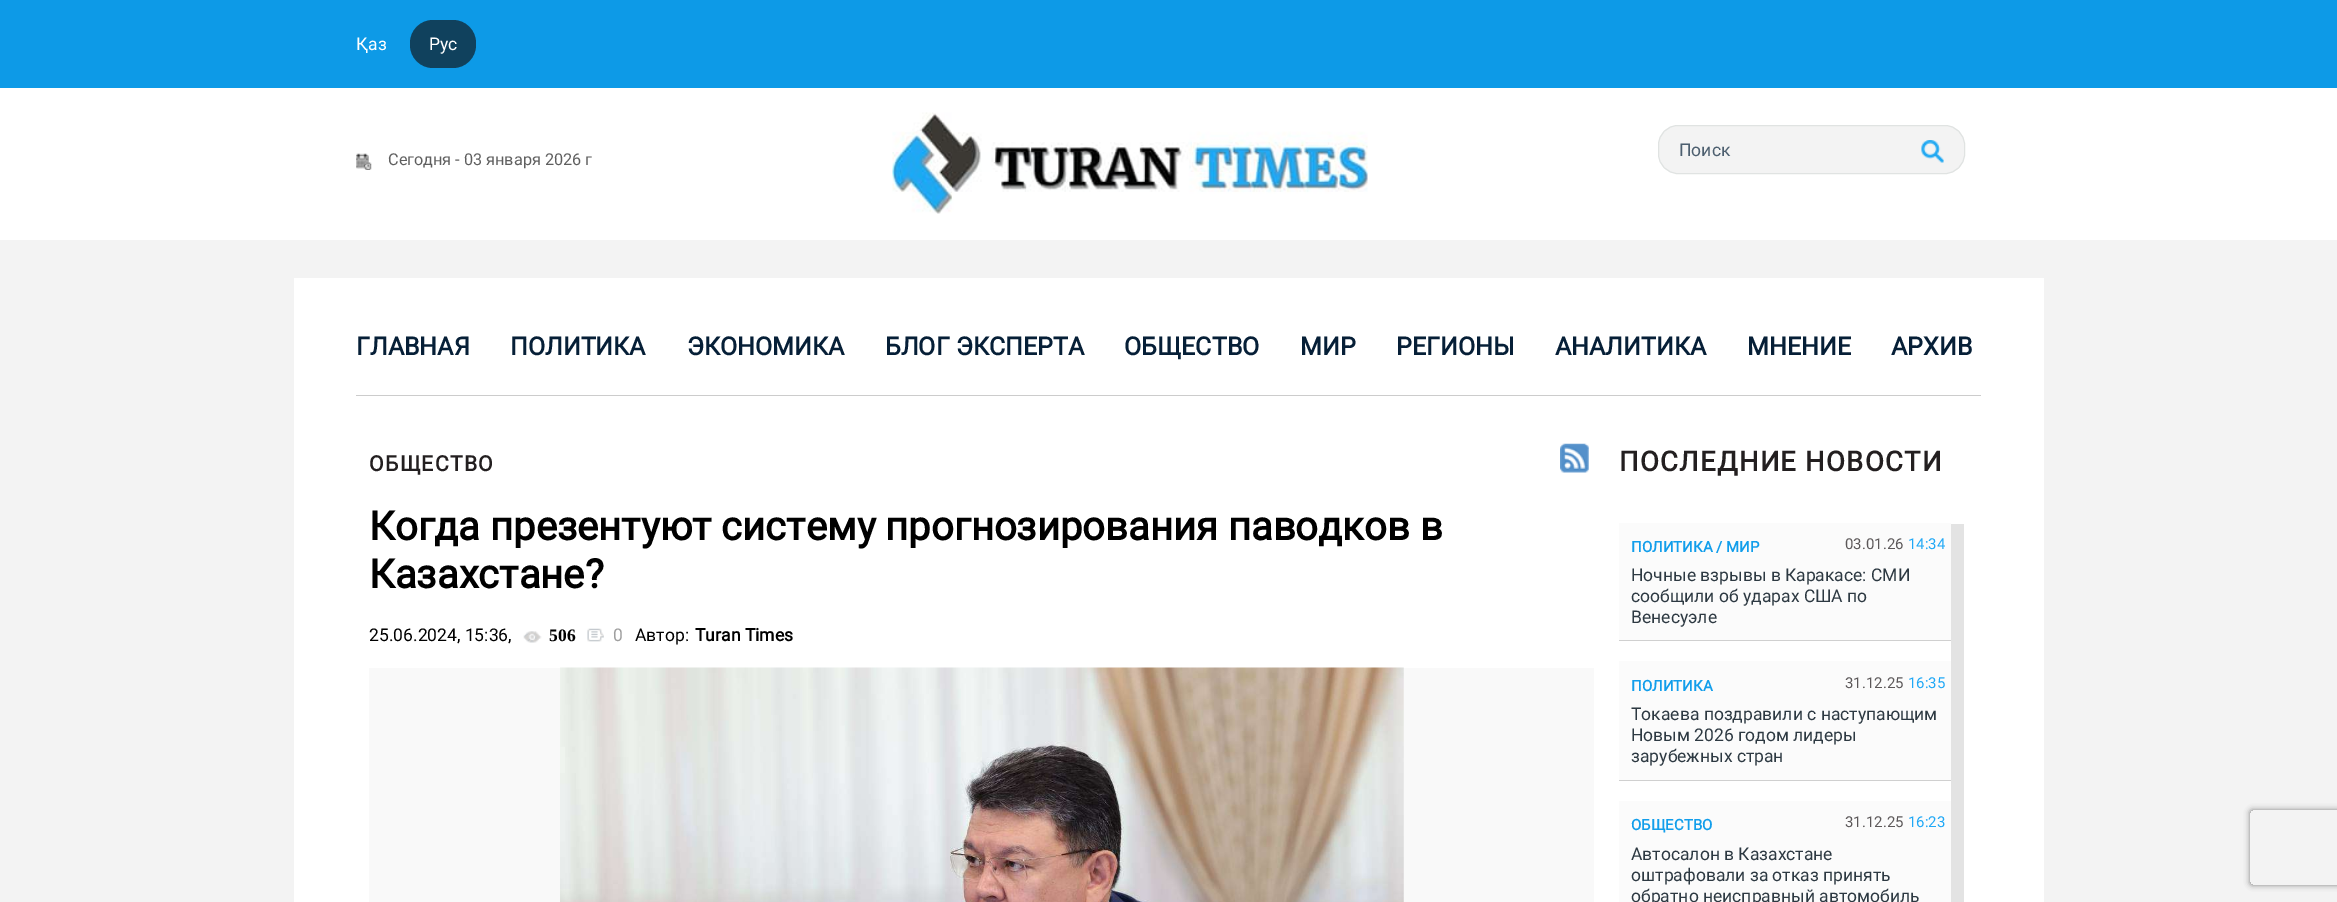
%!PS-Adobe-3.0
%%BoundingBox: 0 0 2337 902
%%LanguageLevel: 3
%%Pages: 1
%%EndComments
%%BeginProlog
/m { moveto } bind def
/l { lineto } bind def
/c { curveto } bind def
/h { closepath } bind def
/f { fill } bind def
/S { stroke } bind def
/q { gsave } bind def
/Q { grestore } bind def
/fn { [ exch dup neg 0 0 3 -1 roll 0 0 ] selectfont } def
/tx { moveto show } def
/bx { rectfill } def
/al { dup .setfillconstantalpha .setstrokeconstantalpha } def
/rr { 5 dict begin { /r /h /w /y /x } { exch def } forall
  x r add y moveto x w add y 2 copy h add r arct x w add y h add x 1 index r arct
  x y h add x y r arct x y 2 copy exch w add exch r arct closepath end } def
/sh { 12 dict begin { /a /b /q /h /w /y /x } { exch def } forall gsave /was 0 def
  9 -2 -9 { dup b mul 4 div /e exch def 1 sub .425 mul 2.718 exch exp 1 add a .99 .min exch div /now exch def
    1 1 now sub 1 was sub div sub al /was now def
    w h .min e 2 mul add 0 gt { x e sub y e sub w e 2 mul add h e 2 mul add
      q e add b .6 mul add w h .min 2 div e add .min 0 .max rr fill } if } for grestore end } def
/im { 5 dict begin { /h /w /y /x /name } { exch def } forall
  gsave x y translate w h scale
  w h 8 [w 0 0 h 0 0] name (r) file false 3 colorimage grestore end } def
%%EndProlog
%%BeginSetup
<< /PageSize [2337 902] /PageUsesTransparency true >> setpagedevice
%%EndSetup
%%Page: 1 1
0 .pushpdf14devicefilter
0 902 translate 1 -1 scale
4 setmiterlimit
0.953 setgray
0 0 2337 902 bx
0.051 0.604 0.906 setrgbcolor
0 0 2337 88 bx
/Roboto-Regular 17.5 fn
1 setgray
(Қаз) 356 50 tx
0.063 0.255 0.365 setrgbcolor
410 20 66 48 23 rr f
1 setgray
(Рус) 429 50 tx
0 88 2337 152 bx
(image0.raw) 892 112 476 102 im
0.953 setgray
1658.5 125.5 306 48 19.5 rr q f Q
0.878 0.89 0.886 setrgbcolor
S
0.302 0.373 0.435 setrgbcolor
(Поиск) 1679 156 tx
(image1.raw) 1921 140 23 23 im
(image2.raw) 356 153 16 17 im
/Roboto-Regular 16.25 fn
0.373 setgray
(Сегодня - 03 января 2026 г) 388 165 tx
1 setgray
294 278 1750 624 bx
0.8 setgray
356 395 1625 1 bx
/Roboto-Bold 25 fn
0.024 0.122 0.216 setrgbcolor
(ГЛАВНАЯ) 356 355 tx
(ПОЛИТИКА) 510 355 tx
(ЭКОНОМИКА) 687 355 tx
(БЛОГ ЭКСПЕРТА) 885 355 tx
(ОБЩЕСТВО) 1124 355 tx
(МИР) 1300 355 tx
(РЕГИОНЫ) 1396 355 tx
(АНАЛИТИКА) 1555 355 tx
(МНЕНИЕ) 1747 355 tx
(АРХИВ) 1891 355 tx
/Roboto-Bold 21.25 fn
0.137 0.122 0.125 setrgbcolor
369 471 m 1.25 0 (ОБЩЕСТВО) ashow
/Roboto-Bold 40 fn
0 setgray
(Когда презентуют систему прогнозирования паводков в) 369 540 tx
(Казахстане?) 369 588 tx
/Roboto-Regular 17.5 fn
(25.06.2024, 15:36,) 369 641 tx
(image3.raw) 523 631 19 12 im
/LiberationSerif-Bold 17.5 fn
(506) 549 641 tx
(image4.raw) 587 628 17 14 im
/Roboto-Regular 17.5 fn
0.624 setgray
(0) 613 641 tx
0 setgray
(Автор:) 635 641 tx
/Roboto-Bold 17.5 fn
(Turan Times) 695 641 tx
0.976 setgray
369 668 1225 234 bx
(image5.raw) 560 667 844 235 im
(image6.raw) 1560 443 29 30 im
/Roboto-Bold 27.5 fn
0.137 0.122 0.125 setrgbcolor
1619 471 m 1.25 0 (ПОСЛЕДНИЕ НОВОСТИ) ashow
0.984 setgray
1619 523 332 117 bx
0.816 setgray
1619 640 332 1 bx
/Roboto-Bold 15 fn
0.071 0.62 0.922 setrgbcolor
(ПОЛИТИКА / МИР) 1631 552 tx
/Roboto-Regular 15 fn
0.361 0.345 0.349 setrgbcolor
(03.01.26) 1845 549 tx
0.125 0.659 0.965 setrgbcolor
(14:34) 1908 549 tx
/Roboto-Regular 17.5 fn
0.176 0.224 0.259 setrgbcolor
(Ночные взрывы в Каракасе: СМИ) 1631 581 tx
(сообщили об ударах США по) 1631 602 tx
(Венесуэле) 1631 623 tx
0.984 setgray
1619 661 332 119 bx
0.816 setgray
1619 780 332 1 bx
/Roboto-Bold 15 fn
0.071 0.62 0.922 setrgbcolor
(ПОЛИТИКА) 1631 691 tx
/Roboto-Regular 15 fn
0.361 0.345 0.349 setrgbcolor
(31.12.25) 1845 688 tx
0.125 0.659 0.965 setrgbcolor
(16:35) 1908 688 tx
/Roboto-Regular 17.5 fn
0.176 0.224 0.259 setrgbcolor
(Токаева поздравили с наступающим) 1631 720 tx
(Новым 2026 годом лидеры) 1631 741 tx
(зарубежных стран) 1631 762 tx
0.984 setgray
1619 801 332 101 bx
/Roboto-Bold 15 fn
0.071 0.62 0.922 setrgbcolor
(ОБЩЕСТВО) 1631 830 tx
/Roboto-Regular 15 fn
0.361 0.345 0.349 setrgbcolor
(31.12.25) 1845 827 tx
0.125 0.659 0.965 setrgbcolor
(16:23) 1908 827 tx
/Roboto-Regular 17.5 fn
0.176 0.224 0.259 setrgbcolor
(Автосалон в Казахстане) 1631 860 tx
(оштрафовали за отказ принять) 1631 881 tx
(обратно неисправный автомобиль) 1631 902 tx
0.89 setgray
1951 524 13 378 bx
q
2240 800 m 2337 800 l 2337 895 l 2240 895 l h 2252.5 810 m 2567.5 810 l 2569 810 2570 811 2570 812.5 c 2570 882.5 l 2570 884 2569 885 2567.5 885 c 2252.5 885 l 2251 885 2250 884 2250 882.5 c 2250 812.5 l 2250 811 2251 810 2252.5 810 c h eoclip newpath
0.502 setgray
2250 810 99 75 2.5 3 1 sh
Q
.poppdf14devicefilter showpage
%%EOF
